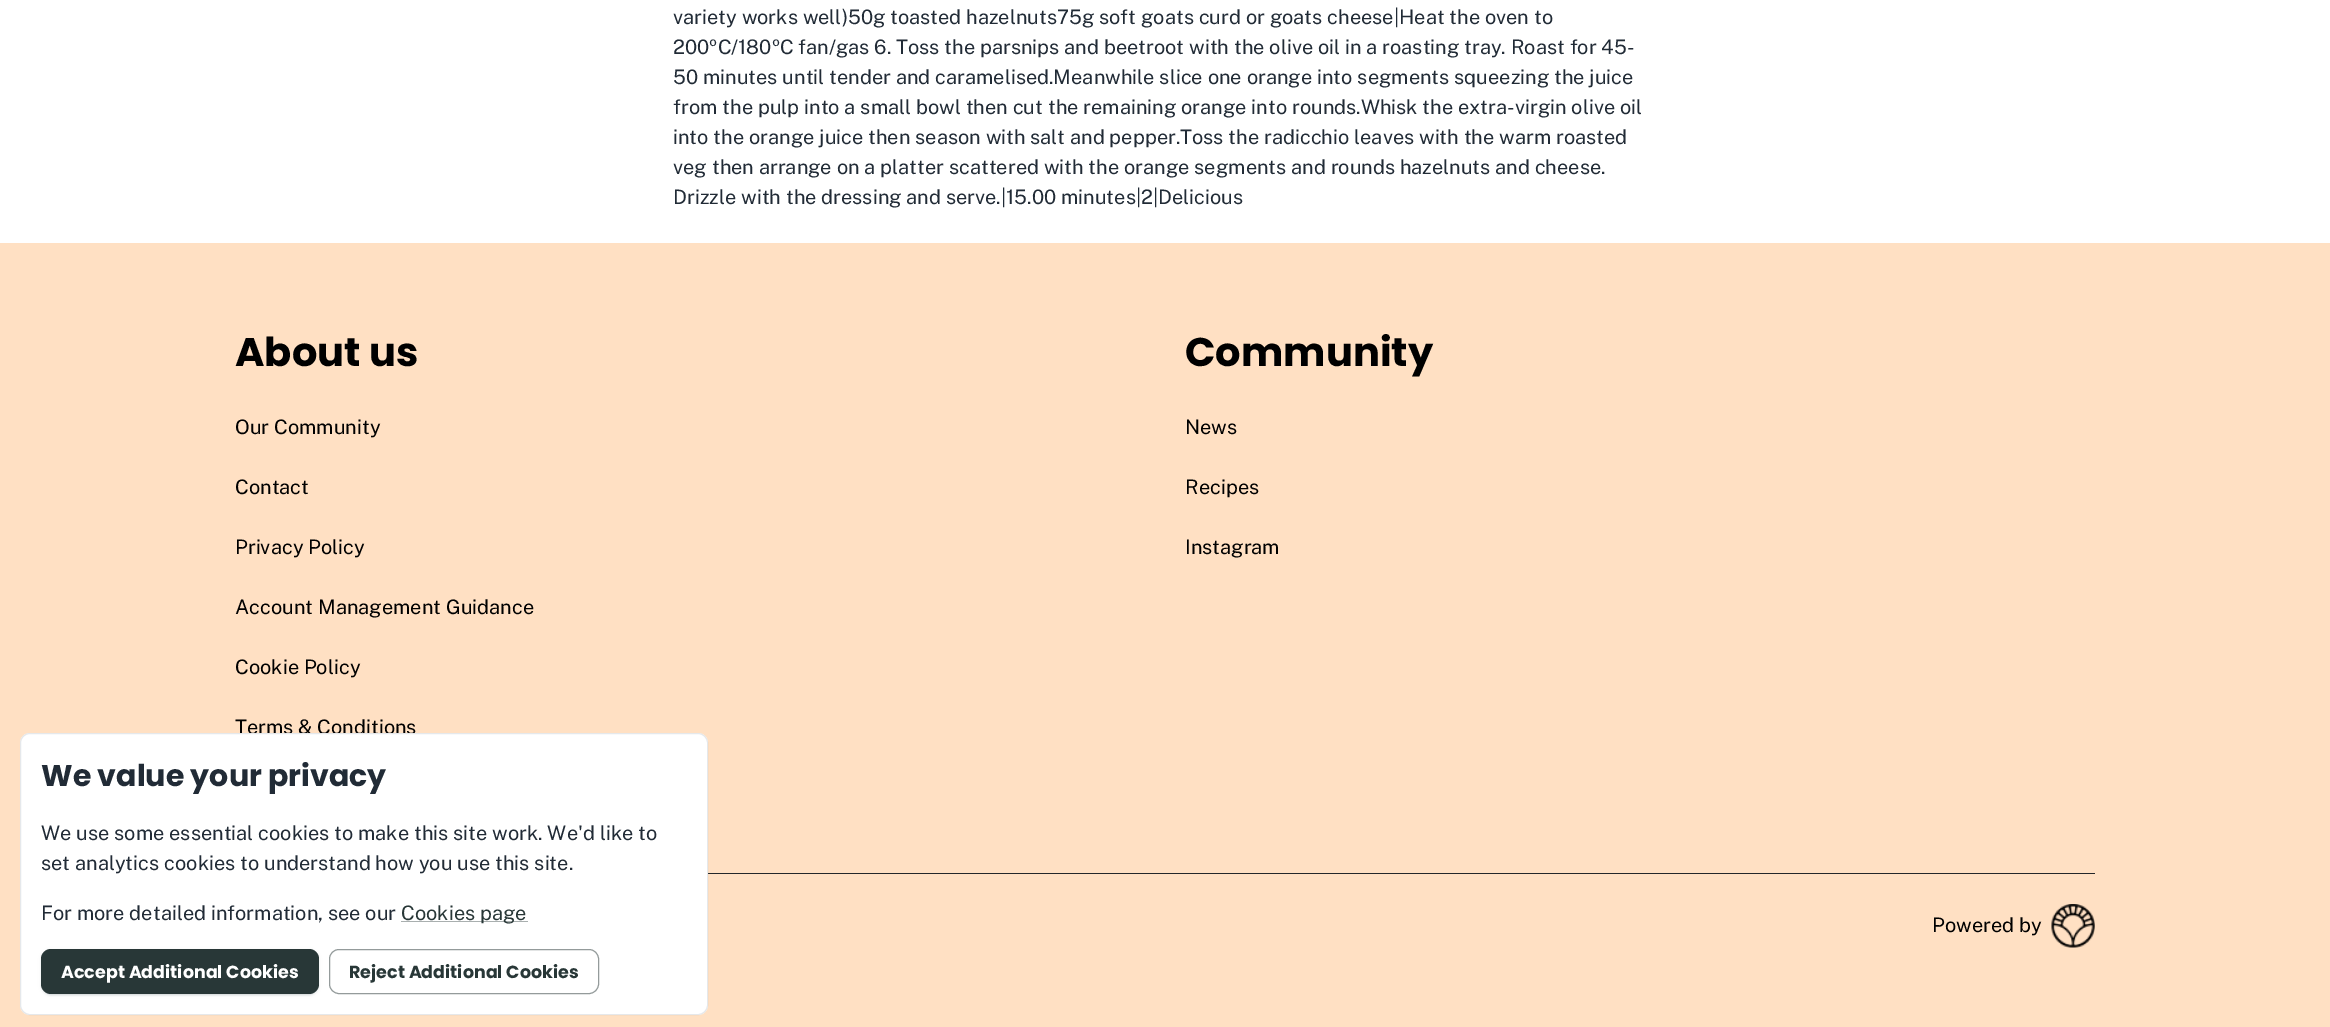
%!PS-Adobe-3.0
%%BoundingBox: 0 0 2330 1027
%%LanguageLevel: 3
%%Pages: 1
%%EndComments
%%BeginProlog
/f { fill } bind def
/S { stroke } bind def
/fn { [ exch dup neg 0 0 3 -1 roll 0 0 ] selectfont } def
/tx { moveto show } def
/bx { rectfill } def
/al { dup .setfillconstantalpha .setstrokeconstantalpha } def
/rr { 5 dict begin { /r /h /w /y /x } { exch def } forall
  x r add y moveto x w add y 2 copy h add r arct x w add y h add x 1 index r arct
  x y h add x y r arct x y 2 copy exch w add exch r arct closepath end } def
/sh { 12 dict begin { /a /b /q /h /w /y /x } { exch def } forall gsave /was 0 def
  9 -2 -9 { dup b mul 4 div /e exch def 1 sub .425 mul 2.718 exch exp 1 add a .99 .min exch div /now exch def
    1 1 now sub 1 was sub div sub al /was now def
    w h .min e 2 mul add 0 gt { x e sub y e sub w e 2 mul add h e 2 mul add
      q e add b .6 mul add w h .min 2 div e add .min 0 .max rr fill } if } for grestore end } def
/im { 5 dict begin { /h /w /y /x /name } { exch def } forall
  gsave x y translate w h scale
  w h 8 [w 0 0 h 0 0] name (r) file false 3 colorimage grestore end } def
%%EndProlog
%%BeginSetup
<< /PageSize [2330 1027] /PageUsesTransparency true >> setpagedevice
%%EndSetup
%%Page: 1 1
0 .pushpdf14devicefilter
0 1027 translate 1 -1 scale
4 setmiterlimit
1 setgray
0 0 2330 1027 bx
/PublicSans-Regular 20 fn
0.129 0.169 0.212 setrgbcolor
(variety works well\)50g toasted hazelnuts75g soft goats curd or goats cheese|Heat the oven to) 673 24 tx
(200ºC/180ºC fan/gas 6. Toss the parsnips and beetroot with the olive oil in a roasting tray. Roast for 45-) 673 54 tx
(50 minutes until tender and caramelised.Meanwhile slice one orange into segments squeezing the juice) 673 84 tx
(from the pulp into a small bowl then cut the remaining orange into rounds.Whisk the extra-virgin olive oil) 673 114 tx
(into the orange juice then season with salt and pepper.Toss the radicchio leaves with the warm roasted) 673 144 tx
(veg then arrange on a platter scattered with the orange segments and rounds hazelnuts and cheese.) 673 174 tx
(Drizzle with the dressing and serve.|15.00 minutes|2|Delicious) 673 204 tx
1 0.878 0.765 setrgbcolor
0 243 2330 784 bx
/Poppins-Bold 40 fn
0 setgray
(About us) 235 366 tx
/PublicSans-Regular 20 fn
(Our Community) 235 434 tx
(Contact) 235 494 tx
(Privacy Policy) 235 554 tx
(Account Management Guidance) 235 614 tx
(Cookie Policy) 235 674 tx
(Terms & Conditions) 235 734 tx
/Poppins-Bold 40 fn
(Community) 1185 366 tx
/PublicSans-Regular 20 fn
(News) 1185 434 tx
(Recipes) 1185 494 tx
(Instagram) 1185 554 tx
0.137 0.149 0.161 setrgbcolor
708 873 1387 1 bx
0 setgray
(Powered by) 1932 932 tx
(image0.raw) 2051 904 44 44 im
1 setgray
20 733 688 282 10 rr f
0.24 al
0.569 0.62 0.671 setrgbcolor
20.5 733.5 687 281 9.5 rr S
/Poppins-Bold 30 fn
1 al
0.129 0.169 0.212 setrgbcolor
(We value your privacy) 41 786 tx
/PublicSans-Regular 20 fn
(We use some essential cookies to make this site work. We'd like to) 41 840 tx
(set analytics cookies to understand how you use this site.) 41 870 tx
(For more detailed information, see our) 41 920 tx
0.663 0.686 0.686 setrgbcolor
401 921 127 1 bx
0.157 0.216 0.216 setrgbcolor
(Cookies page) 401 920 tx
0.569 0.62 0.671 setrgbcolor
41 950 278 45 10 3 0.12 sh
41 951 278 45 10 1 0.14 sh
44 955 272 40 8 0.5 0.2 sh
0.157 0.216 0.216 setrgbcolor
41 949 278 45 10 rr f
/Poppins-Bold 17.5 fn
1 setgray
(Accept Additional Cookies) 61 978 tx
0.58 0.608 0.608 setrgbcolor
329.5 949.5 269 44 9.5 rr S
0.157 0.216 0.216 setrgbcolor
(Reject Additional Cookies) 349 978 tx
.poppdf14devicefilter showpage
%%EOF
